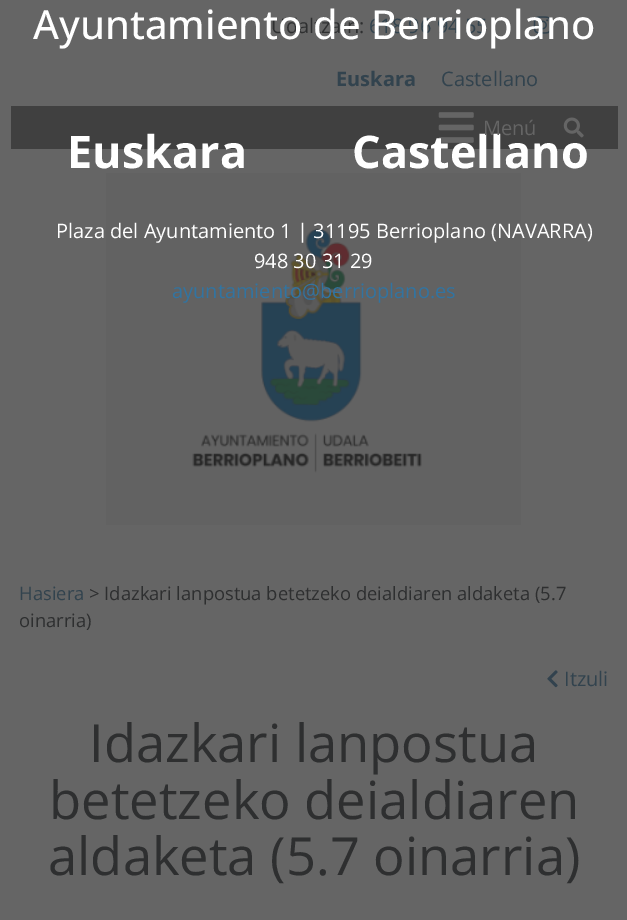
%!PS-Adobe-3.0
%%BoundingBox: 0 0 627 920
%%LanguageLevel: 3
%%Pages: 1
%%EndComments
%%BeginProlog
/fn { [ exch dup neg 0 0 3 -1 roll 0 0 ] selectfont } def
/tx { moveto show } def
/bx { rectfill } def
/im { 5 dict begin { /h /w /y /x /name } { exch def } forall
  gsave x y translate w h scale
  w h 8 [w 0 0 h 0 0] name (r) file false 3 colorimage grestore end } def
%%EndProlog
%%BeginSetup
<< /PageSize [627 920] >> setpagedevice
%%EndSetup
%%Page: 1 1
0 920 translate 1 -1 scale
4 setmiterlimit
0.396 setgray
0 0 627 920 bx
/OpenSans-Regular 20 fn
0.18 0.184 0.188 setrgbcolor
(Udaltzain:) 271 33 tx
0.196 0.263 0.306 setrgbcolor
(618 96 94 55) 369 33 tx
(image0.raw) 533 16 19 18 im
/OpenSans-Medium 40 fn
1 setgray
(Ayuntamiento de Berrioplano) 33 39 tx
0.251 setgray
11 106 607 43 bx
/OpenSans-Bold 45 fn
1 setgray
(Euskara) 67 168 tx
(image1.raw) 438 112 36 31 im
(image2.raw) 563 117 21 21 im
(Castellano) 352 168 tx
0.384 setgray
106 173 415 352 bx
(image3.raw) 192 228 230 245 im
/OpenSans-Regular 20 fn
1 setgray
(Plaza del Ayuntamiento 1 | 31195 Berrioplano \(NAVARRA\)) 56 238 tx
(948 30 31 29) 254 268 tx
0.196 0.455 0.631 setrgbcolor
(ayuntamiento@berrioplano.es) 172 298 tx
/OpenSans-Bold 20 fn
0.196 0.263 0.306 setrgbcolor
(Euskara) 336 86 tx
/OpenSans-Regular 20 fn
(Castellano) 441 86 tx
0.396 setgray
(Menú) 483 135 tx
/OpenSans-Regular 18.4 fn
0.196 0.263 0.306 setrgbcolor
(Hasiera) 19 600 tx
0.18 0.184 0.188 setrgbcolor
(> Idazkari lanpostua betetzeko deialdiaren aldaketa \(5.7) 89 600 tx
(oinarria\)) 19 627 tx
(image4.raw) 547 670 11 18 im
/OpenSans-Regular 20 fn
0.196 0.263 0.306 setrgbcolor
(Itzuli) 564 686 tx
/OpenSans-Regular 52.5 fn
0.18 0.184 0.188 setrgbcolor
(Idazkari lanpostua) 89 762 tx
(betetzeko deialdiaren) 49 819 tx
(aldaketa \(5.7 oinarria\)) 48 875 tx
showpage
%%EOF
